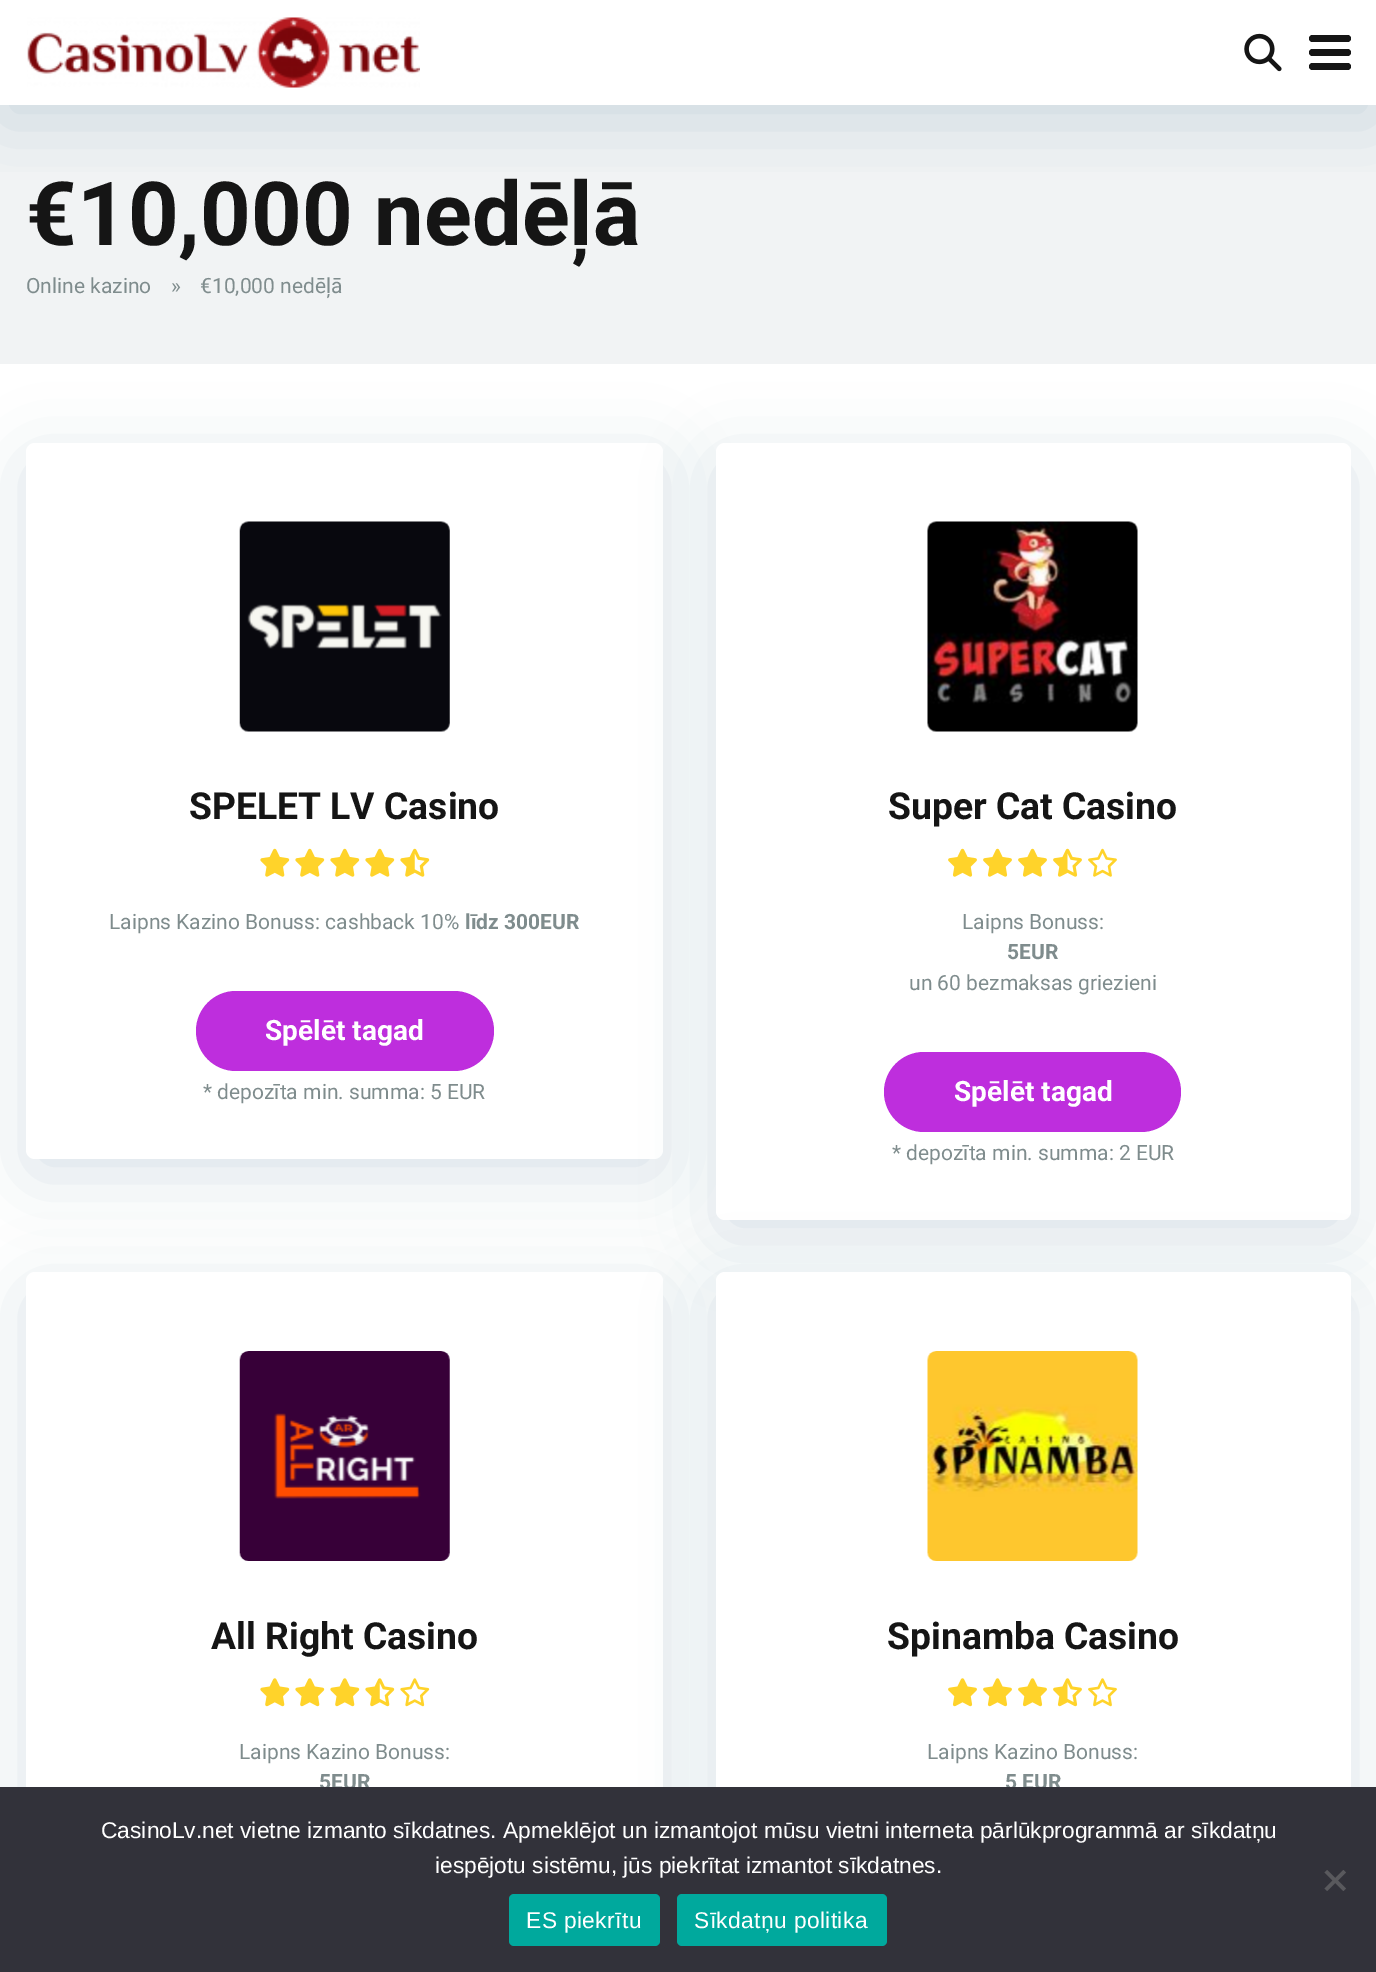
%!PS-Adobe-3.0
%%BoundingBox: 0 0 1376 1972
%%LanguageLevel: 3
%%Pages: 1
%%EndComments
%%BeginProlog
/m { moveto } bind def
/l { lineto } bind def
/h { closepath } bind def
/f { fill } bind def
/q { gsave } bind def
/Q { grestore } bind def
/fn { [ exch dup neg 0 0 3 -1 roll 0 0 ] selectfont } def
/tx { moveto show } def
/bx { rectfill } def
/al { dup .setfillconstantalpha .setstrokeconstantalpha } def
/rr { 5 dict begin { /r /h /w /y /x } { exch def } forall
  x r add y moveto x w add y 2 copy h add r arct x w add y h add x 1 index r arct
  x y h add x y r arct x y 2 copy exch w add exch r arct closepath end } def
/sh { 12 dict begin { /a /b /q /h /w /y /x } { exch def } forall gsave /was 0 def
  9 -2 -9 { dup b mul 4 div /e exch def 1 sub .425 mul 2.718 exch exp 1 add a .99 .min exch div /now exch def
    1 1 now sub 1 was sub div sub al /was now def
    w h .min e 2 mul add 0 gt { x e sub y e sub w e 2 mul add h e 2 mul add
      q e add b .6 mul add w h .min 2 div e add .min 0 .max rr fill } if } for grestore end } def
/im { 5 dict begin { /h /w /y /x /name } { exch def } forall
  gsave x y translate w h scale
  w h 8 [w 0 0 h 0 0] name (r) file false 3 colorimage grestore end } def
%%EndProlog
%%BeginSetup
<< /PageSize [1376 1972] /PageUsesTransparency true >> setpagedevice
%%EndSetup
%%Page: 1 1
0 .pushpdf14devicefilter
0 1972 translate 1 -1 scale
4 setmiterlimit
1 setgray
0 0 1376 1972 bx
0.945 0.953 0.957 setrgbcolor
0 105 1376 259 bx
q
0 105 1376 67 rectclip
0.427 0.553 0.678 setrgbcolor
0 18 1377 105 0 35 0.25 sh
Q
(image0.raw) 27 17 393 71 im
(image1.raw) 1244 33 38 39 im
0.082 setgray
1309 35 42 7 3.5 rr f
1309 49 42 7 3.5 rr f
1309 63 42 7 3.5 rr f
/Roboto-Bold 88.5 fn
(€10,000 nedēļā) 26 245 tx
/Roboto-Regular 21 fn
0.498 0.549 0.553 setrgbcolor
(Online kazino) 26 293 tx
(») 171 293 tx
(€10,000 nedēļā) 200 293 tx
0.427 0.553 0.678 setrgbcolor
26 460 637 716 9 35 0.25 sh
1 setgray
26 443 637 716 9 rr f
(image2.raw) 239 521 211 211 im
/Roboto-Bold 37.25 fn
0.082 setgray
(SPELET LV Casino) 189 819 tx
(image3.raw) 260 848 30 29 im
(image3.raw) 295 848 30 29 im
(image3.raw) 330 848 30 29 im
(image3.raw) 365 848 30 29 im
(image4.raw) 400 848 30 29 im
/Roboto-Regular 21 fn
0.498 0.549 0.553 setrgbcolor
(Laipns Kazino Bonuss: cashback 10%) 109 929 tx
/Roboto-Bold 21 fn
(līdz 300EUR) 465 929 tx
0.745 0.18 0.867 setrgbcolor
196 991 298 80 40 rr f
/Roboto-Bold 28 fn
1 setgray
(Spēlēt tagad) 265 1040 tx
/Roboto-Regular 21 fn
0.498 0.549 0.553 setrgbcolor
(* depozīta min. summa: 5 EUR) 203 1099 tx
0.427 0.553 0.678 setrgbcolor
716 460 635 777 9 35 0.25 sh
1 setgray
716 443 635 777 9 rr f
(image5.raw) 927 521 211 211 im
/Roboto-Bold 37.25 fn
0.082 setgray
(Super Cat Casino) 888 819 tx
(image6.raw) 948 848 29 29 im
(image6.raw) 983 848 29 29 im
(image6.raw) 1018 848 29 29 im
(image7.raw) 1053 848 29 29 im
(image8.raw) 1088 848 29 29 im
/Roboto-Regular 21 fn
0.498 0.549 0.553 setrgbcolor
(Laipns Bonuss:) 962 929 tx
/Roboto-Bold 21 fn
(5EUR) 1007 959 tx
/Roboto-Regular 21 fn
(un 60 bezmaksas griezieni) 909 990 tx
0.745 0.18 0.867 setrgbcolor
884 1052 297 80 40 rr f
/Roboto-Bold 28 fn
1 setgray
(Spēlēt tagad) 954 1101 tx
/Roboto-Regular 21 fn
0.498 0.549 0.553 setrgbcolor
(* depozīta min. summa: 2 EUR) 892 1160 tx
0.427 0.553 0.678 setrgbcolor
26 1290 637 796 9 35 0.25 sh
1 setgray
26 1272 637 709 9 rr f
(image9.raw) 239 1351 211 210 im
/Roboto-Bold 37.25 fn
0.082 setgray
(All Right Casino) 211 1649 tx
(image10.raw) 260 1678 30 29 im
(image10.raw) 295 1678 30 29 im
(image10.raw) 330 1678 30 29 im
(image11.raw) 365 1678 30 29 im
(image12.raw) 400 1678 30 29 im
/Roboto-Regular 21 fn
0.498 0.549 0.553 setrgbcolor
(Laipns Kazino Bonuss:) 239 1759 tx
/Roboto-Bold 21 fn
(5EUR) 319 1789 tx
0.427 0.553 0.678 setrgbcolor
716 1290 635 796 9 35 0.25 sh
1 setgray
716 1272 635 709 9 rr f
(image13.raw) 927 1351 211 210 im
/Roboto-Bold 37.25 fn
0.082 setgray
(Spinamba Casino) 887 1649 tx
(image14.raw) 948 1678 29 29 im
(image14.raw) 983 1678 29 29 im
(image14.raw) 1018 1678 29 29 im
(image15.raw) 1053 1678 29 29 im
(image16.raw) 1088 1678 29 29 im
/Roboto-Regular 21 fn
0.498 0.549 0.553 setrgbcolor
(Laipns Kazino Bonuss:) 927 1759 tx
/Roboto-Bold 21 fn
(5 EUR) 1005 1789 tx
0.196 0.196 0.227 setrgbcolor
0 1787 1376 185 bx
/LiberationSans-Regular 22.75 fn
1 setgray
(CasinoLv.net vietne izmanto sīkdatnes. Apmeklējot un izmantojot mūsu vietni interneta pārlūkprogrammā ar sīkdatņu) 101 1838 tx
(iespējotu sistēmu, jūs piekrītat izmantot sīkdatnes.) 435 1873 tx
0.349 0.349 0.365 setrgbcolor
1343.5 1870 m 1346 1872.5 l 1327 1891 l 1324.5 1888.5 l h f
1324.5 1872.5 m 1327 1870 l 1346 1888.5 l 1343.5 1891 l h f
0 0.663 0.616 setrgbcolor
509 1894 151 52 5 rr f
1 setgray
526 1928 m 0.4 0 (ES piekrītu) ashow
0 0.663 0.616 setrgbcolor
677 1894 210 52 5 rr f
1 setgray
694 1928 m 0.4 0 (Sīkdatņu politika) ashow
.poppdf14devicefilter showpage
%%EOF
